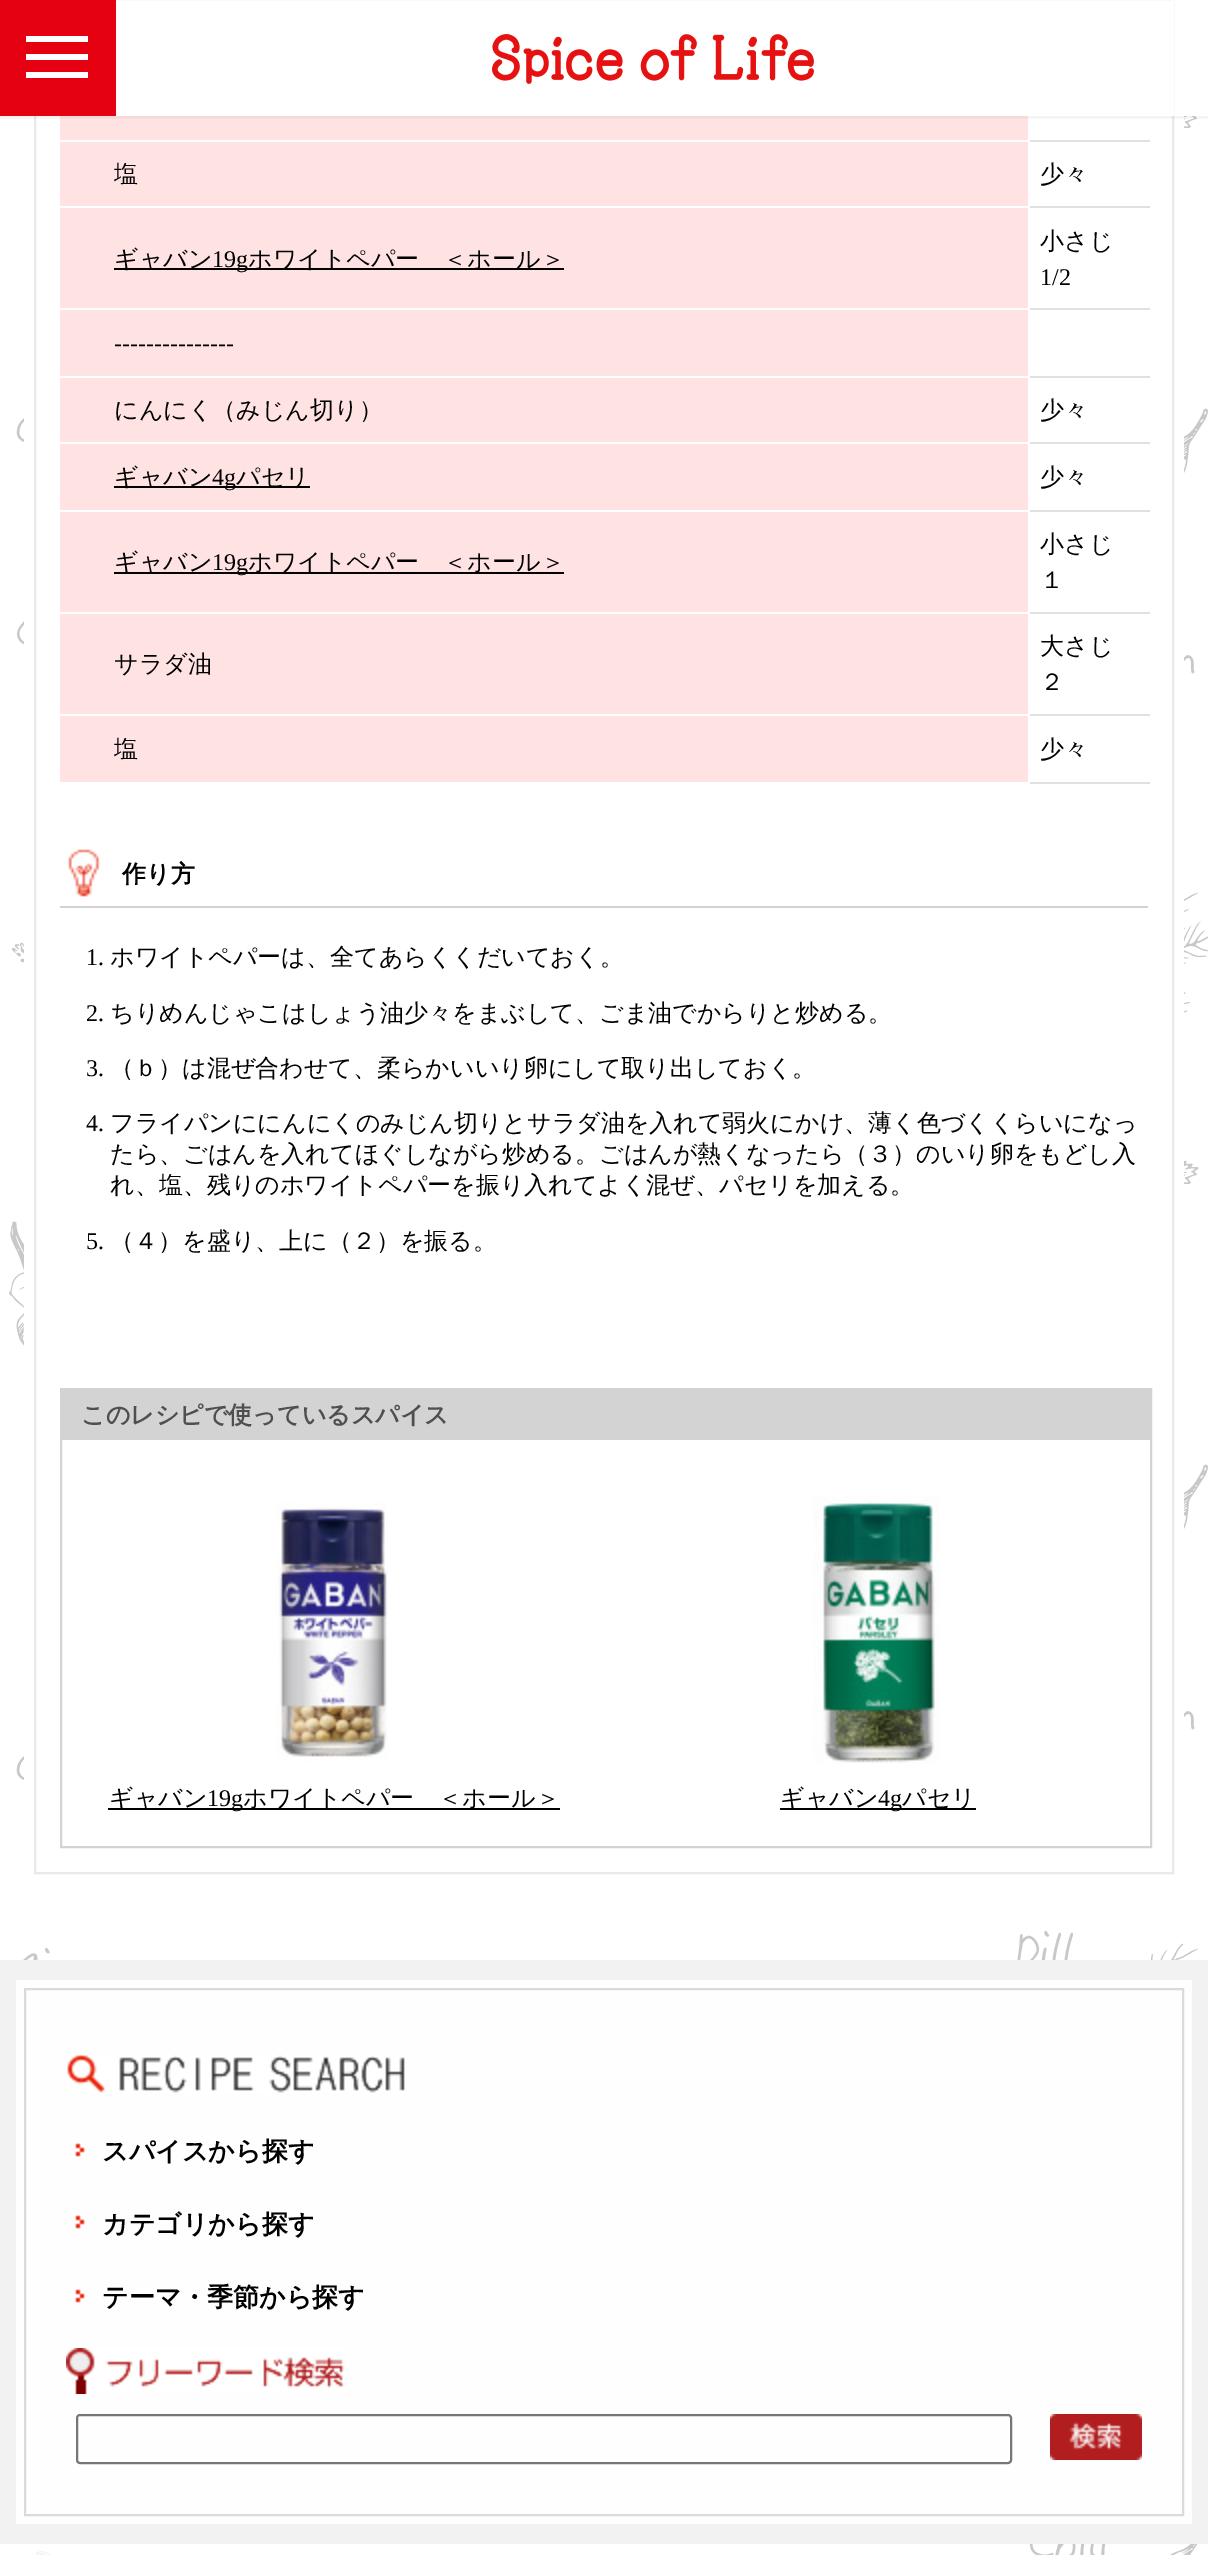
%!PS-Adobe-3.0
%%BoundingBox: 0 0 1208 2555
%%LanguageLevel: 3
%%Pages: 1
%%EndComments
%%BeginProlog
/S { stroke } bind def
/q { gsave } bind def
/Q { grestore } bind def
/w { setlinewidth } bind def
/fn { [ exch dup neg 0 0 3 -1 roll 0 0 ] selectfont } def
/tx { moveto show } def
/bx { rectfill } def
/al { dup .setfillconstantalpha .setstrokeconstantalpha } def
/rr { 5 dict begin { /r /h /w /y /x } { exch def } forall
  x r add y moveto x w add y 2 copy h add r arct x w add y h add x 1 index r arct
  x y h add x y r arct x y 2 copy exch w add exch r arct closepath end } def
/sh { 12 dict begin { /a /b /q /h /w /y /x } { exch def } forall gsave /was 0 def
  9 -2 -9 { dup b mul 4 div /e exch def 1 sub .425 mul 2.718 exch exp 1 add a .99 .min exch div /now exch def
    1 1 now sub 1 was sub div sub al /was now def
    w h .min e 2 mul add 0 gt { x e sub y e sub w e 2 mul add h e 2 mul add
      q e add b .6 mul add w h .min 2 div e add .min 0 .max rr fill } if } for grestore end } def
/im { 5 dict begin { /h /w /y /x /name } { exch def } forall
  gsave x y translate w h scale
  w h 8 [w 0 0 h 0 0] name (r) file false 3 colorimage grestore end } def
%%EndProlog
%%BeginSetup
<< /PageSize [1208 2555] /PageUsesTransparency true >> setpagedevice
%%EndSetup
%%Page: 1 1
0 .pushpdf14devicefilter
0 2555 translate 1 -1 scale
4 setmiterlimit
1 setgray
0 0 1208 2555 bx
(image1.raw) 9 116 1199 2439 im
24 116 1160 1756 bx
0.914 setgray
2 w
35 -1 1138 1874 rectstroke
1 setgray
1172 0 2 116 bx
1 0.89 0.89 setrgbcolor
60 116 968 24 bx
q
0 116 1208 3 rectclip
0 setgray
-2 -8 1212 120 0 5 0.3 sh
Q
0.898 0 0.071 setrgbcolor
0 0 116 116 bx
1 setgray
26 36 62 6 bx
26 54 62 6 bx
26 72 62 6 bx
(image0.raw) 492 34 322 50 im
0.882 setgray
1028 140 122 2 bx
1 setgray
1028 140 2 2 bx
1 0.89 0.89 setrgbcolor
60 142 968 64 bx
0.882 setgray
1028 206 122 2 bx
1 setgray
1028 206 2 2 bx
/WenQuanYiZenHei-Medium 24 fn
0 setgray
(塩) 114 182 tx
(少々) 1040 182 tx
1 0.89 0.89 setrgbcolor
60 208 968 100 bx
0.882 setgray
1028 308 122 2 bx
0 setgray
(小さじ) 1040 249 tx
/LiberationSerif-Regular 24 fn
(1/2) 1040 285 tx
1 setgray
1028 308 2 2 bx
0 setgray
114 268 450 2 bx
/WenQuanYiZenHei-Medium 24 fn
(ギャバン) 114 267 tx
/LiberationSerif-Regular 24 fn
(19g) 212 267 tx
/WenQuanYiZenHei-Medium 24 fn
(ホワイトペパー　＜ホール＞) 248 267 tx
1 0.89 0.89 setrgbcolor
60 310 968 66 bx
0.882 setgray
1028 376 122 2 bx
1 setgray
1028 376 2 2 bx
/LiberationSerif-Regular 24 fn
0 setgray
(---------------) 114 351 tx
1 0.89 0.89 setrgbcolor
60 378 968 64 bx
0.882 setgray
1028 442 122 2 bx
1 setgray
1028 442 2 2 bx
/WenQuanYiZenHei-Medium 24 fn
0 setgray
(にんにく（みじん切り）) 114 418 tx
(少々) 1040 418 tx
1 0.89 0.89 setrgbcolor
60 444 968 66 bx
0.882 setgray
1028 510 122 2 bx
1 setgray
1028 510 2 2 bx
0 setgray
114 486 196 2 bx
(ギャバン) 114 485 tx
/LiberationSerif-Regular 24 fn
(4g) 212 485 tx
/WenQuanYiZenHei-Medium 24 fn
(パセリ) 236 485 tx
(少々) 1040 485 tx
1 0.89 0.89 setrgbcolor
60 512 968 100 bx
0.882 setgray
1028 612 122 2 bx
0 setgray
(小さじ) 1040 552 tx
(１) 1040 588 tx
1 setgray
1028 612 2 2 bx
0 setgray
114 572 450 2 bx
(ギャバン) 114 570 tx
/LiberationSerif-Regular 24 fn
(19g) 212 570 tx
/WenQuanYiZenHei-Medium 24 fn
(ホワイトペパー　＜ホール＞) 248 570 tx
1 0.89 0.89 setrgbcolor
60 614 968 100 bx
0.882 setgray
1028 714 122 2 bx
0 setgray
(大さじ) 1040 654 tx
(２) 1040 690 tx
1 setgray
1028 714 2 2 bx
0 setgray
(サラダ油) 114 672 tx
1 0.89 0.89 setrgbcolor
60 716 968 66 bx
0.882 setgray
1028 782 122 2 bx
1 setgray
1028 782 2 2 bx
0 setgray
(塩) 114 757 tx
(少々) 1040 757 tx
0.827 setgray
60 906 1088 2 bx
(image2.raw) 68 849 33 48 im
/WenQuanYiZenHei-Bold 24 fn
0 setgray
(作り方) 122 882 tx
/LiberationSerif-Regular 24 fn
(1.) 86 965 tx
/WenQuanYiZenHei-Medium 24 fn
(ホワイトペパーは、全てあらくくだいておく。) 110 965 tx
/LiberationSerif-Regular 24 fn
(2.) 86 1021 tx
/WenQuanYiZenHei-Medium 24 fn
(ちりめんじゃこはしょう油少々をまぶして、ごま油でからりと炒める。) 110 1021 tx
/LiberationSerif-Regular 24 fn
(3.) 86 1076 tx
/WenQuanYiZenHei-Medium 24 fn
(（ｂ）は混ぜ合わせて、柔らかいいり卵にして取り出しておく。) 110 1076 tx
/LiberationSerif-Regular 24 fn
(4.) 86 1131 tx
/WenQuanYiZenHei-Medium 24 fn
(フライパンににんにくのみじん切りとサラダ油を入れて弱火にかけ、薄く色づくくらいになっ) 110 1131 tx
(たら、ごはんを入れてほぐしながら炒める。ごはんが熱くなったら（３）のいり卵をもどし入) 110 1162 tx
(れ、塩、残りのホワイトペパーを振り入れてよく混ぜ、パセリを加える。) 110 1193 tx
/LiberationSerif-Regular 24 fn
(5.) 86 1249 tx
/WenQuanYiZenHei-Medium 24 fn
(（４）を盛り、上に（２）を振る。) 110 1249 tx
0.827 setgray
61 1389 1090 458 rectstroke
62 1390 1088 50 bx
/WenQuanYiZenHei-Bold 24 fn
0.306 0.31 0.31 setrgbcolor
(このレシピで使っているスパイス) 81 1423 tx
(image3.raw) 276 1501 112 260 im
0 setgray
108 1808 452 2 bx
/WenQuanYiZenHei-Medium 24 fn
(ギャバン) 109 1806 tx
/LiberationSerif-Regular 24 fn
(19g) 207 1806 tx
/WenQuanYiZenHei-Medium 24 fn
(ホワイトペパー　＜ホール＞) 243 1806 tx
(image4.raw) 812 1496 128 267 im
780 1808 196 2 bx
(ギャバン) 780 1806 tx
/LiberationSerif-Regular 24 fn
(4g) 878 1806 tx
/WenQuanYiZenHei-Medium 24 fn
(パセリ) 902 1806 tx
0.8 al
1 setgray
35 2551 16 4 bx
1 al
0.949 setgray
0 1960 1208 584 bx
0.996 setgray
16 1980 1176 544 bx
0.859 0.855 0.847 setrgbcolor
25 1989 1158 526 rectstroke
(image5.raw) 67 2054 338 39 im
(image6.raw) 75 2143 10 14 im
/WenQuanYiZenHei-Bold 26 fn
0 setgray
(スパイスから探す) 102 2160 tx
(image6.raw) 75 2215 10 14 im
(カテゴリから探す) 102 2233 tx
(image6.raw) 75 2289 10 14 im
(テーマ・季節から探す) 102 2306 tx
(image7.raw) 66 2348 279 46 im
0.463 setgray
77 2415 934 48 3 rr S
(image8.raw) 1050 2414 92 46 im
.poppdf14devicefilter showpage
%%EOF
